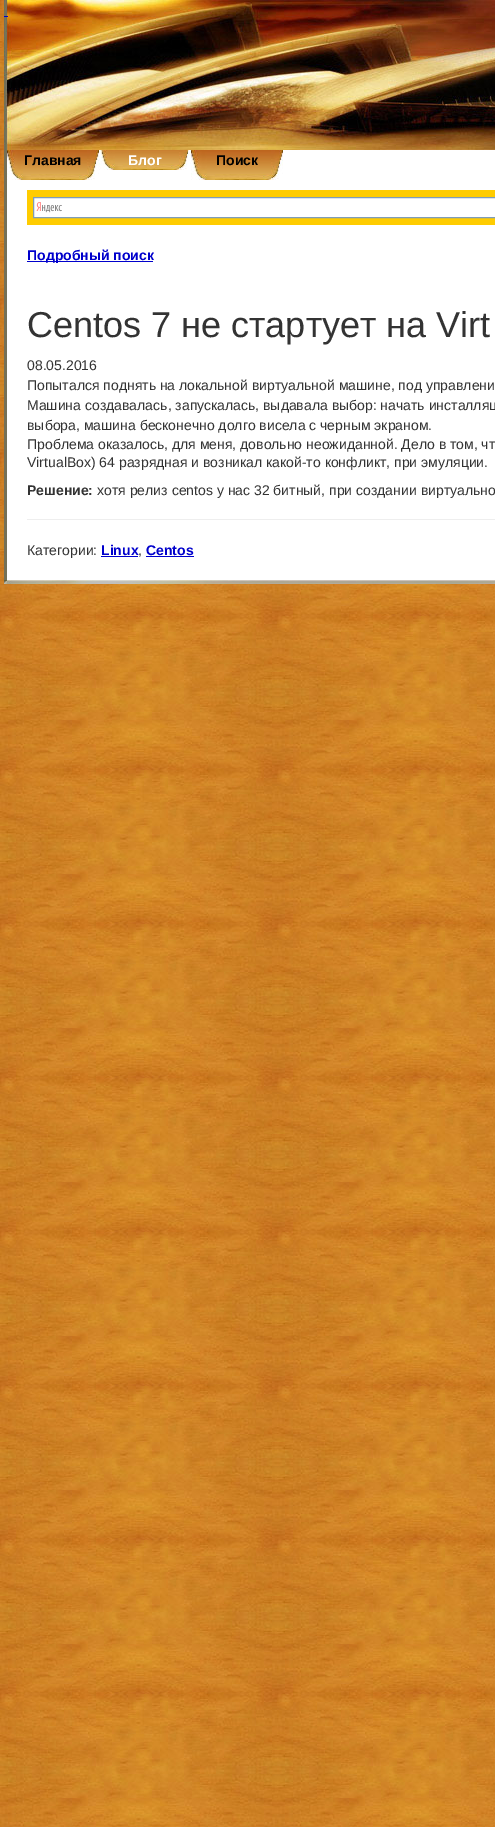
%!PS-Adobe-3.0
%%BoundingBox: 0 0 495 1827
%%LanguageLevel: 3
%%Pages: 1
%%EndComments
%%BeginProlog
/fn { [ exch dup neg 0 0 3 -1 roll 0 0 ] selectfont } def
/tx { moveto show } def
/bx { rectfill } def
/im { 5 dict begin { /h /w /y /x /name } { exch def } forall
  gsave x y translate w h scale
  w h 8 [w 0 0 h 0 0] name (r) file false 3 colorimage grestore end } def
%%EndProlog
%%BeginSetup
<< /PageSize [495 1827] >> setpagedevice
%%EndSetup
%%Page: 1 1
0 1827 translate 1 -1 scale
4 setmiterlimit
1 setgray
0 0 495 1827 bx
(image0.raw) 0 584 495 1243 im
(image1.raw) 0 0 4 150 im
(image2.raw) 4 0 491 150 im
0 0 0.8 setrgbcolor
4 16 4 1 bx
(image3.raw) 0 150 4 434 im
0.455 0.439 0.341 setrgbcolor
4 150 3 430 bx
(image4.raw) 7 150 92 30 im
/LiberationSans-Bold 14 fn
0 setgray
(Главная) 24 165 tx
(image5.raw) 99 150 92 20 im
1 setgray
(Блог) 128 165 tx
(image4.raw) 191 150 92 30 im
0 setgray
(Поиск) 216 165 tx
1 0.8 0 setrgbcolor
27 190 468 35 bx
1 setgray
34 198 461 19 bx
(image6.raw) 36 202 26 11 im
0.498 0.616 0.725 setrgbcolor
33.5 197.5 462 20 rectstroke
0 0 0.8 setrgbcolor
27 261 126 1 bx
(Подробный поиск) 27 260 tx
/LiberationSans-Regular 36 fn
0.2 setgray
(Centos 7 не стартует на Virt) 27 337 tx
/LiberationSans-Regular 14 fn
(08.05.2016) 27 370 tx
(Попытался поднять на локальной виртуальной машине, под управлени) 27 390 tx
(Машина создавалась, запускалась, выдавала выбор: начать инсталляц) 27 410 tx
(выбора, машина бесконечно долго висела с черным экраном.) 27 430 tx
(Проблема оказалось, для меня, довольно неожиданной. Дело в том, чт) 27 449 tx
(VirtualBox\) 64 разрядная и возникал какой-то конфликт, при эмуляции.) 27 467 tx
/LiberationSans-Bold 14 fn
(Решение:) 27 495 tx
/LiberationSans-Regular 14 fn
(хотя релиз centos у нас 32 битный, при создании виртуально) 97 495 tx
0.933 setgray
27 519 468 1 bx
0.2 setgray
(Категории:) 27 555 tx
/LiberationSans-Bold 14 fn
0 0 0.8 setrgbcolor
(Linux) 101 555 tx
101 556 37 1 bx
/LiberationSans-Regular 14 fn
0.2 setgray
(,) 138 555 tx
/LiberationSans-Bold 14 fn
0 0 0.8 setrgbcolor
(Centos) 146 555 tx
146 556 48 1 bx
(image7.raw) 4 580 491 4 im
showpage
%%EOF
